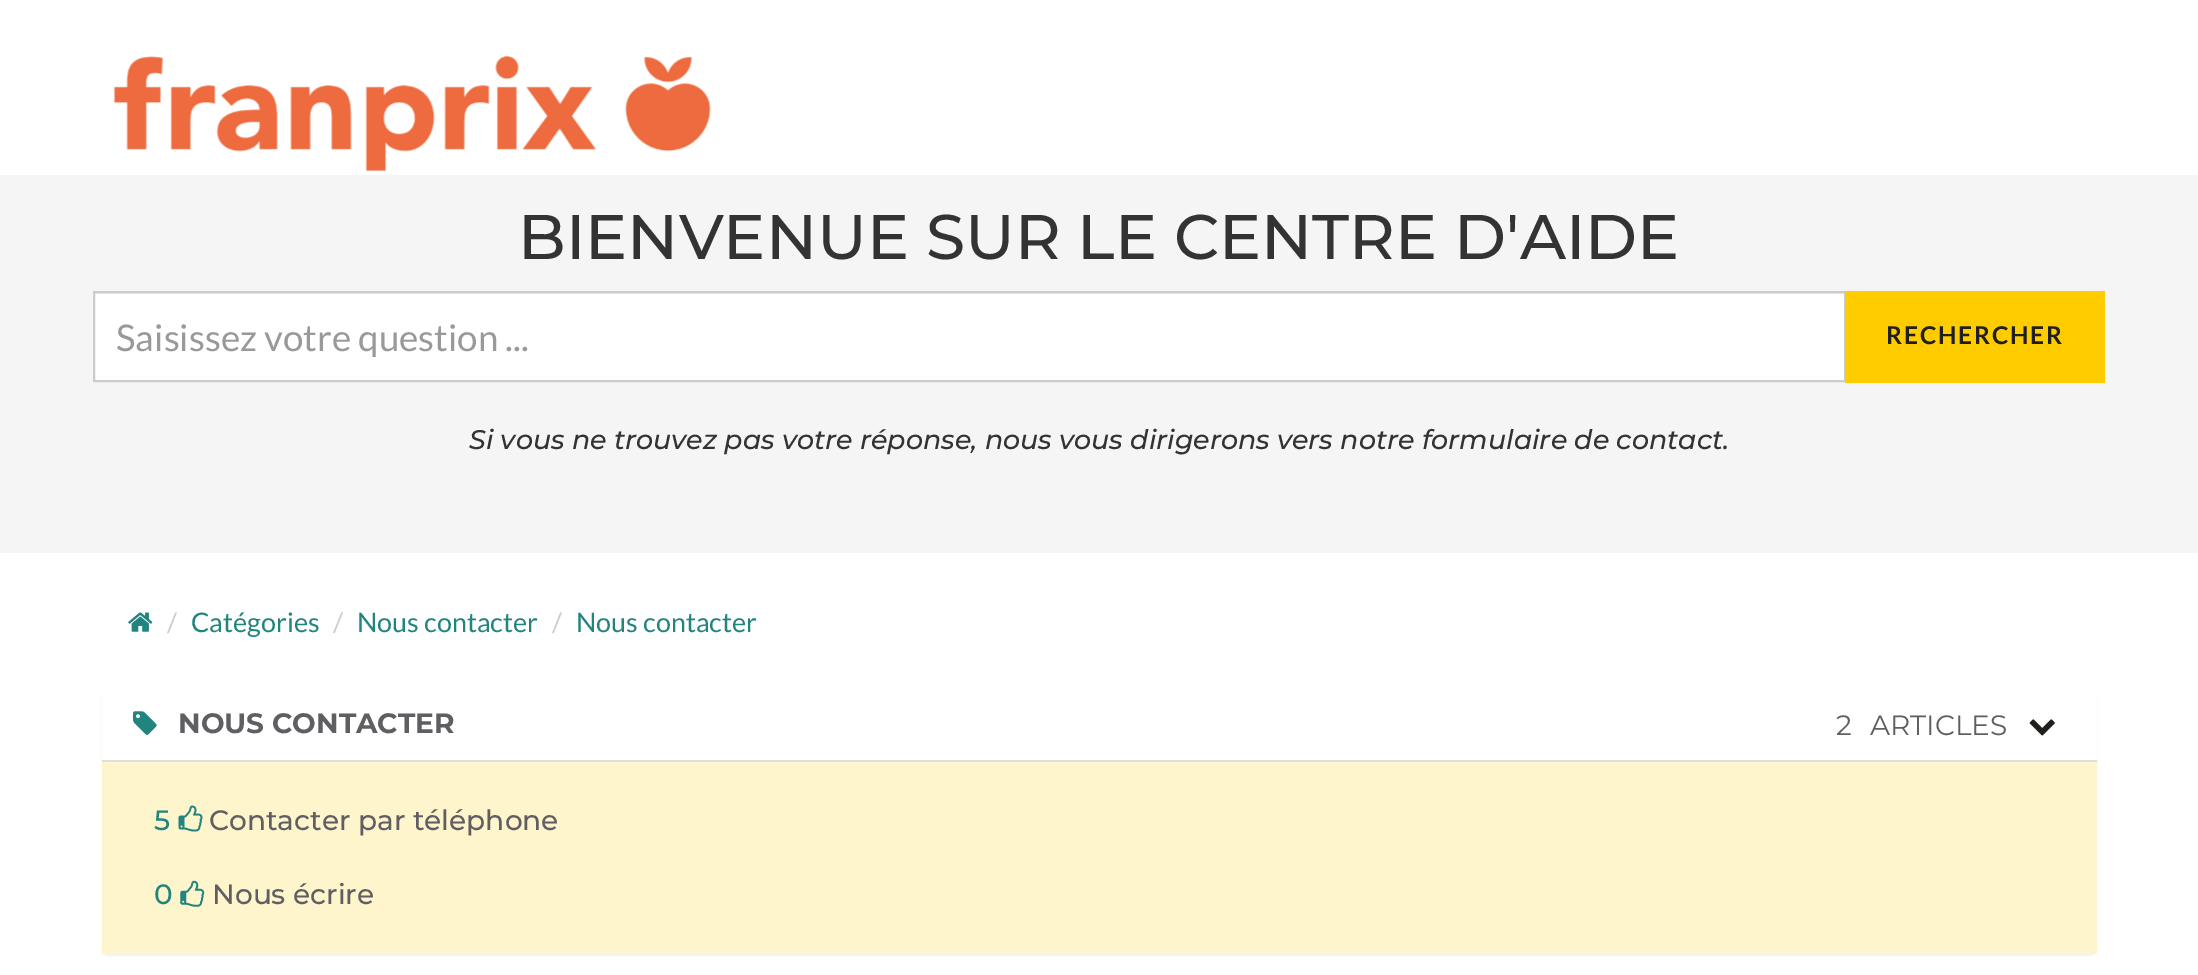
%!PS-Adobe-3.0
%%BoundingBox: 0 0 2198 975
%%LanguageLevel: 3
%%Pages: 1
%%EndComments
%%BeginProlog
/m { moveto } bind def
/f { fill } bind def
/q { gsave } bind def
/Q { grestore } bind def
/w { setlinewidth } bind def
/fn { [ exch dup neg 0 0 3 -1 roll 0 0 ] selectfont } def
/tx { moveto show } def
/bx { rectfill } def
/al { dup .setfillconstantalpha .setstrokeconstantalpha } def
/rr { 5 dict begin { /r /h /w /y /x } { exch def } forall
  x r add y moveto x w add y 2 copy h add r arct x w add y h add x 1 index r arct
  x y h add x y r arct x y 2 copy exch w add exch r arct closepath end } def
/sh { 12 dict begin { /a /b /q /h /w /y /x } { exch def } forall gsave /was 0 def
  9 -2 -9 { dup b mul 4 div /e exch def 1 sub .425 mul 2.718 exch exp 1 add a .99 .min exch div /now exch def
    1 1 now sub 1 was sub div sub al /was now def
    w h .min e 2 mul add 0 gt { x e sub y e sub w e 2 mul add h e 2 mul add
      q e add b .6 mul add w h .min 2 div e add .min 0 .max rr fill } if } for grestore end } def
/im { 5 dict begin { /h /w /y /x /name } { exch def } forall
  gsave x y translate w h scale
  w h 8 [w 0 0 h 0 0] name (r) file false 3 colorimage grestore end } def
%%EndProlog
%%BeginSetup
<< /PageSize [2198 975] /PageUsesTransparency true >> setpagedevice
%%EndSetup
%%Page: 1 1
0 .pushpdf14devicefilter
0 975 translate 1 -1 scale
4 setmiterlimit
1 setgray
0 0 2198 975 bx
(image0.raw) 113 55 598 117 im
0.961 setgray
0 175 2198 378 bx
/Montserrat-Medium 63 fn
0.2 setgray
(BIENVENUE SUR LE CENTRE D'AIDE) 518 259 tx
1 setgray
95 294 1749 86 bx
0.925 setgray
95 293 1750 1 bx
0.8 setgray
2 w
94 292 1751 89 rectstroke
q
116 313 1708 44 rectclip
/Lato-Regular 36.75 fn
0.6 setgray
(Saisissez votre question ...) 116 351 tx
Q
1 0.8 0 setrgbcolor
1845 291 260 92 bx
/Lato-Bold 24.5 fn
0.125 0.122 0.11 setrgbcolor
1886 344 m 1.75 0 (RECHERCHER) ashow
/Montserrat-MediumItalic 26.95 fn
0.2 setgray
(Si vous ne trouvez pas votre réponse, nous vous dirigerons vers notre formulaire de contact.) 469 449 tx
(image1.raw) 128 612 25 20 im
/Lato-Regular 26.95 fn
0.8 setgray
(/) 167 632 tx
0.129 0.518 0.494 setrgbcolor
(Catégories) 191 632 tx
0.8 setgray
(/) 333 632 tx
0.129 0.518 0.494 setrgbcolor
(Nous contacter) 357 632 tx
0.8 setgray
(/) 552 632 tx
0.129 0.518 0.494 setrgbcolor
(Nous contacter) 576 632 tx
0 setgray
102 691 1995 265 7 1 0.05 sh
1 setgray
102 690 1995 264 7 rr f
(image2.raw) 133 711 24 24 im
/Montserrat-Bold 28 fn
0.376 0.369 0.384 setrgbcolor
(NOUS CONTACTER) 178 733 tx
/Montserrat-Regular 28 fn
(2) 1836 735 tx
(ARTICLES) 1870 735 tx
(image3.raw) 2029 719 26 17 im
1 0.961 0.8 setrgbcolor
102 762 1995 192 bx
0.867 setgray
102 760 1995 2 bx
/Montserrat-Medium 28 fn
0.129 0.518 0.494 setrgbcolor
(5) 154 830 tx
(image4.raw) 178 805 25 27 im
0.376 0.369 0.384 setrgbcolor
(Contacter par téléphone) 209 830 tx
0.129 0.518 0.494 setrgbcolor
(0) 154 904 tx
(image5.raw) 180 880 25 27 im
0.376 0.369 0.384 setrgbcolor
(Nous écrire) 212 904 tx
.poppdf14devicefilter showpage
%%EOF
